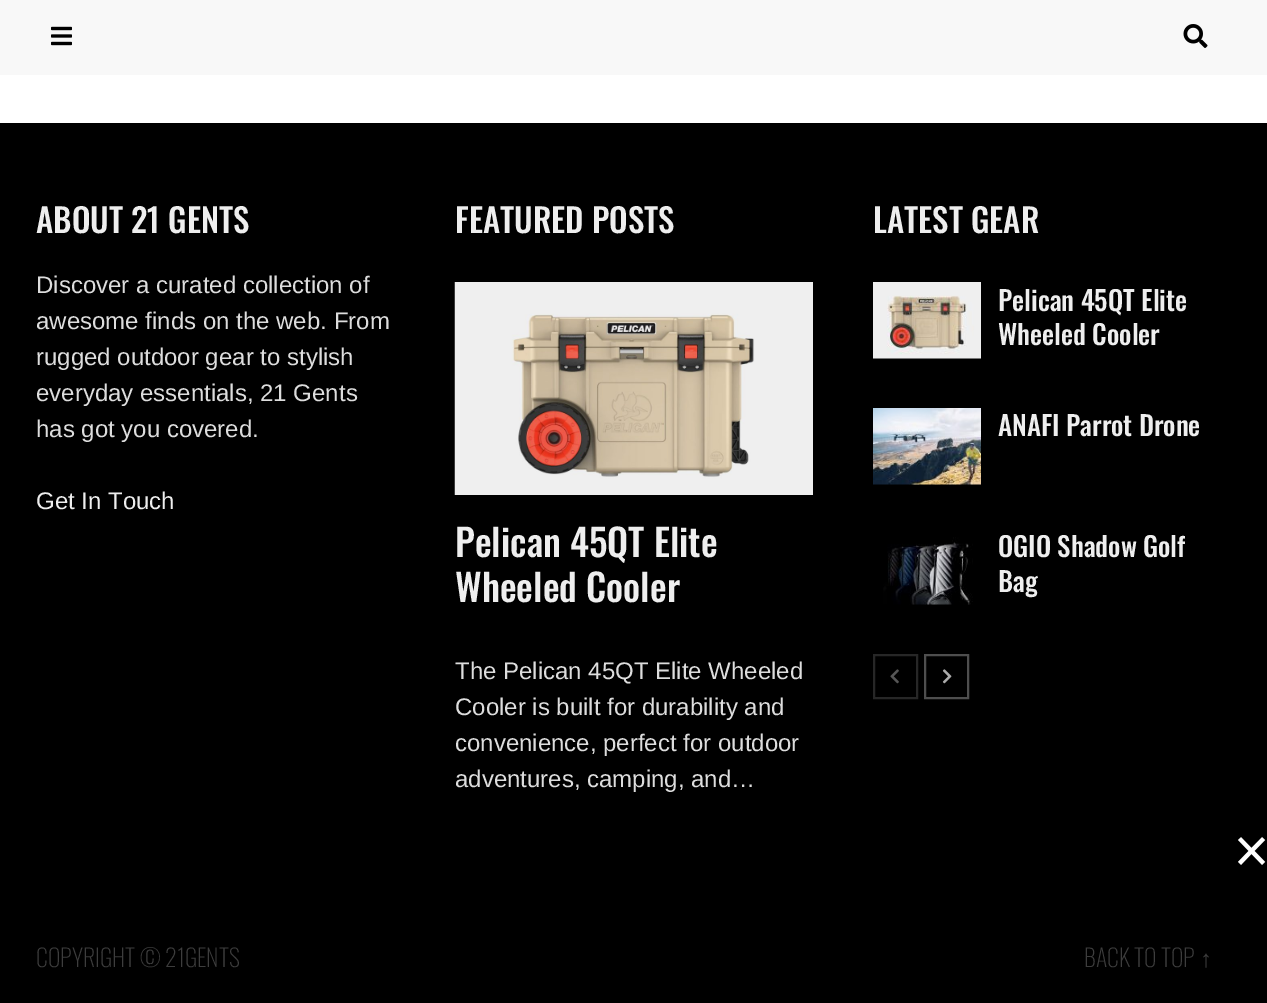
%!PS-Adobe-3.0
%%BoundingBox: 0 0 1267 1003
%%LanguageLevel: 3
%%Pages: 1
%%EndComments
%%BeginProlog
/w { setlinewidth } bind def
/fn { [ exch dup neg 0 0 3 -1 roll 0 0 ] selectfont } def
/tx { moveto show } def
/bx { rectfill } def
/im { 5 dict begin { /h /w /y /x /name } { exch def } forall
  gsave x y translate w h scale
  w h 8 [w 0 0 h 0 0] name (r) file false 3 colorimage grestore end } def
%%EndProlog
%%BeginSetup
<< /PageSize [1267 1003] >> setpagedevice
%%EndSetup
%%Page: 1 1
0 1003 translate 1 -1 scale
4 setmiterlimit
1 setgray
0 0 1267 1003 bx
0.973 setgray
0 0 1267 75 bx
(image0.raw) 51 26 21 20 im
(image1.raw) 1183 24 25 24 im
0 setgray
0 123 1267 785 bx
/Oswald-Medium 33 fn
0.933 setgray
(ABOUT 21 GENTS) 36 233 tx
/LiberationSans-Regular 24 fn
0.867 setgray
(Discover a curated collection of) 36 293 tx
(awesome finds on the web. From) 36 329 tx
(rugged outdoor gear to stylish) 36 365 tx
(everyday essentials, 21 Gents) 36 401 tx
(has got you covered.) 36 437 tx
0.933 setgray
(Get In Touch) 36 509 tx
/Oswald-Medium 33 fn
(FEATURED POSTS) 455 233 tx
(image2.raw) 454 282 359 213 im
/Oswald-Medium 37.5 fn
(Pelican 45QT Elite) 455 557 tx
(Wheeled Cooler) 455 602 tx
/LiberationSans-Regular 24 fn
0.867 setgray
(The Pelican 45QT Elite Wheeled) 455 679 tx
(Cooler is built for durability and) 455 715 tx
(convenience, perfect for outdoor) 455 751 tx
(adventures, camping, and…) 455 787 tx
/Oswald-Medium 33 fn
0.933 setgray
(LATEST GEAR) 873 233 tx
(image3.raw) 873 282 108 77 im
/Oswald-Medium 27 fn
(Pelican 45QT Elite) 998 311 tx
(Wheeled Cooler) 998 345 tx
(image4.raw) 873 408 108 77 im
(ANAFI Parrot Drone) 998 436 tx
(image5.raw) 883 537 90 68 im
(OGIO Shadow Golf) 998 557 tx
(Bag) 998 592 tx
0.153 setgray
2 w
874 655 43 43 rectstroke
(image6.raw) 890 669 9 15 im
0.306 setgray
925 655 43 43 rectstroke
(image7.raw) 942 669 10 15 im
0 setgray
0 908 1267 95 bx
/Oswald-ExtraLight 24 fn
0.239 setgray
(COPYRIGHT © 21GENTS) 36 967 tx
(BACK TO TOP) 1084 967 tx
/LiberationSerif-Regular 24 fn
(↑) 1200 967 tx
(image8.raw) 1238 837 28 28 im
showpage
%%EOF
